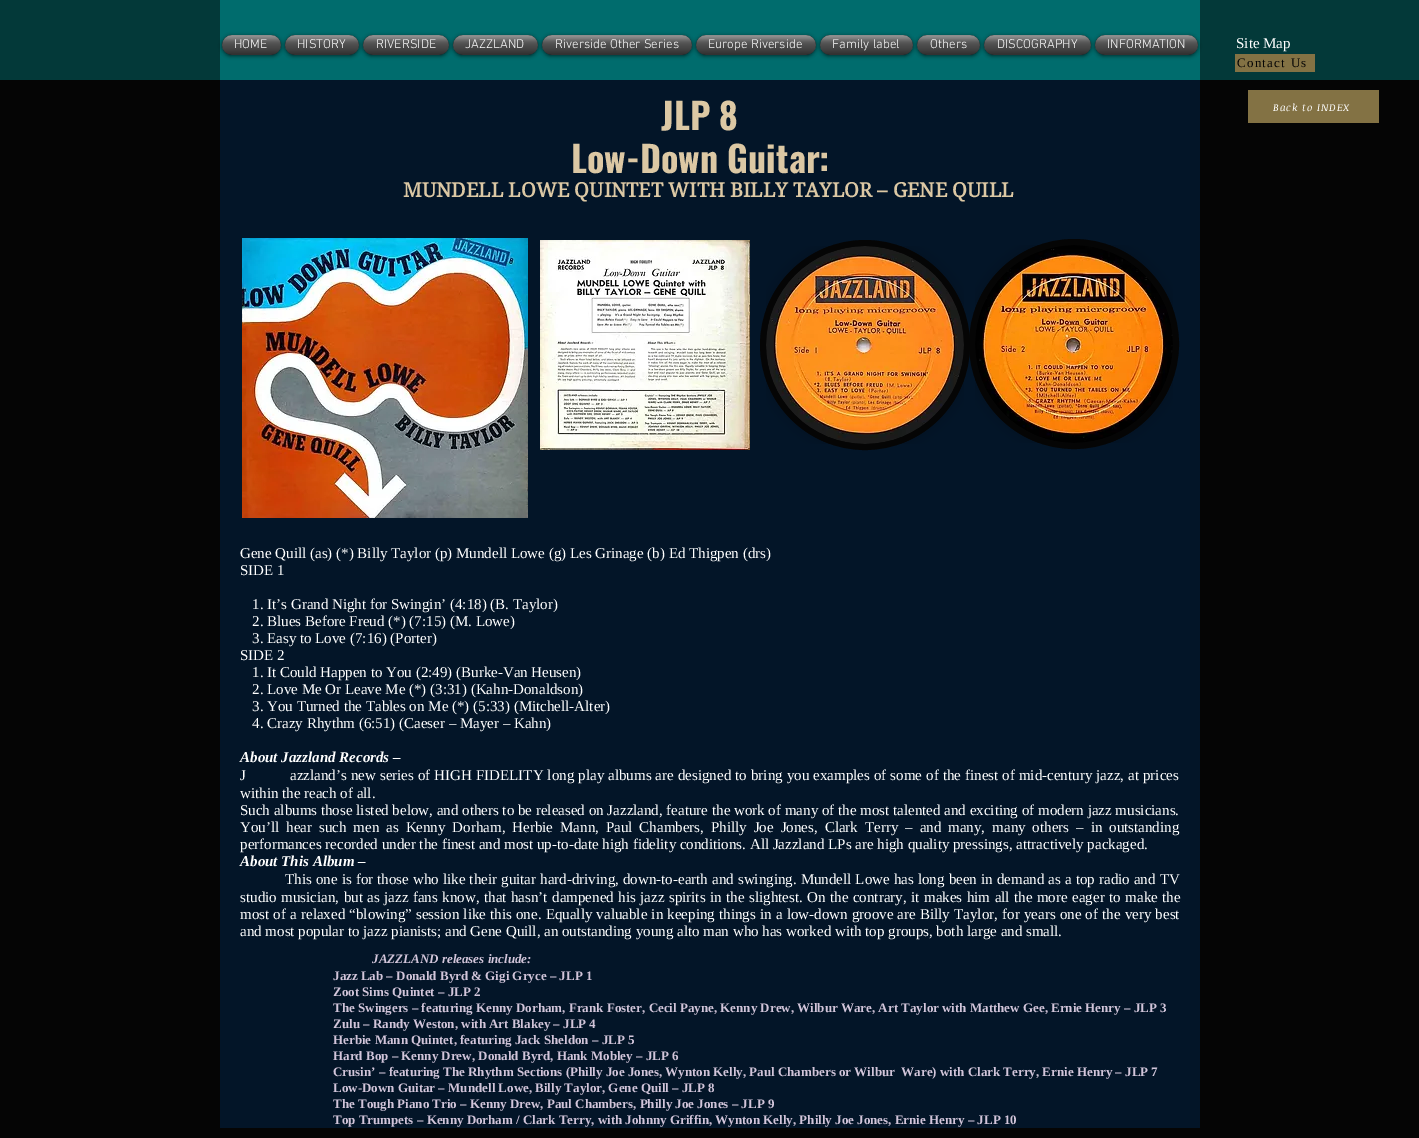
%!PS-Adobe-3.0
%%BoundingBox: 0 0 1419 1138
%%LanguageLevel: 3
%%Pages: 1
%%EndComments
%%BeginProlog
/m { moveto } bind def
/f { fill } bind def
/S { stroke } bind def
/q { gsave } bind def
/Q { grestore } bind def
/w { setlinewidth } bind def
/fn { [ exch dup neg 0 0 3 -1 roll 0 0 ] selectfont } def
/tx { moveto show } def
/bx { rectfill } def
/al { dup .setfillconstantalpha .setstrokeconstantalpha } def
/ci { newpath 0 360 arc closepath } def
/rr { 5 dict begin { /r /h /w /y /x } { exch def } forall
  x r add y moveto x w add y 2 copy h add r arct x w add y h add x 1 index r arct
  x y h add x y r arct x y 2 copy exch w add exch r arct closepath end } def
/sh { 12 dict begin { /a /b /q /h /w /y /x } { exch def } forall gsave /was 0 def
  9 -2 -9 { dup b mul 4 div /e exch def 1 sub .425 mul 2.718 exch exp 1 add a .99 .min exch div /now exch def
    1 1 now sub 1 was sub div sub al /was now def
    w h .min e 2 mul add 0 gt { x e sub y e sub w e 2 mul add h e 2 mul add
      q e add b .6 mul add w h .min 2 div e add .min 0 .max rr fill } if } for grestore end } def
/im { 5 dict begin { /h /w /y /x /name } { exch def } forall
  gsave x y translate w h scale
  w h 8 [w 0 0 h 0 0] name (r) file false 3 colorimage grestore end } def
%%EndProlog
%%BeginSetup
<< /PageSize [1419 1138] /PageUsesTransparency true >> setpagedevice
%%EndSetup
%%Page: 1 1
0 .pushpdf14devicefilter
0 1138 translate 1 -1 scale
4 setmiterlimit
0.02 setgray
0 0 1419 1138 bx
0.012 0.224 0.224 setrgbcolor
0 0 1419 80 bx
0 0.424 0.427 setrgbcolor
220 0 980 80 bx
0 setgray
222 36 59 20 10 2 0.6 sh
0.02 setgray
222 35 59 20 10 rr f
(image0.raw) 222 35 59 20 im
(image1.raw) 222 35 59 20 im
/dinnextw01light-Light 13 fn
1 setgray
(HOME) 234 48 tx
0 setgray
285 36 74 20 10 2 0.6 sh
0.02 setgray
285 35 74 20 10 rr f
(image2.raw) 285 35 74 20 im
(image3.raw) 285 35 74 20 im
1 setgray
(HISTORY) 297 48 tx
0 setgray
363 36 86 20 10 2 0.6 sh
0.02 setgray
363 35 86 20 10 rr f
(image4.raw) 363 35 86 20 im
(image5.raw) 363 35 86 20 im
1 setgray
(RIVERSIDE) 376 48 tx
0 setgray
453 36 85 20 10 2 0.6 sh
0.02 setgray
453 35 85 20 10 rr f
(image6.raw) 453 35 85 20 im
(image7.raw) 453 35 85 20 im
1 setgray
(JAZZLAND) 465 48 tx
0 setgray
542 36 150 20 10 2 0.6 sh
0.02 setgray
542 35 150 20 10 rr f
(image8.raw) 542 35 150 20 im
(image9.raw) 542 35 150 20 im
1 setgray
(Riverside Other Series) 555 48 tx
0 setgray
696 36 120 20 10 2 0.6 sh
0.02 setgray
696 35 120 20 10 rr f
(image10.raw) 696 35 120 20 im
(image11.raw) 696 35 120 20 im
1 setgray
(Europe Riverside) 708 48 tx
0 setgray
820 36 93 20 10 2 0.6 sh
0.02 setgray
820 35 93 20 10 rr f
(image12.raw) 820 35 93 20 im
(image13.raw) 820 35 93 20 im
1 setgray
(Family label) 832 48 tx
0 setgray
917 36 63 20 10 2 0.6 sh
0.02 setgray
917 35 63 20 10 rr f
(image14.raw) 917 35 63 20 im
(image15.raw) 917 35 63 20 im
1 setgray
(Others) 930 48 tx
0 setgray
984 36 107 20 10 2 0.6 sh
0.02 setgray
984 35 107 20 10 rr f
(image16.raw) 984 35 107 20 im
(image17.raw) 984 35 107 20 im
1 setgray
(DISCOGRAPHY) 997 48 tx
0 setgray
1095 36 103 20 10 2 0.6 sh
0.02 setgray
1095 35 103 20 10 rr f
(image18.raw) 1095 35 103 20 im
(image19.raw) 1095 35 103 20 im
1 setgray
(INFORMATION) 1107 48 tx
/LiberationSerif-Regular 15 fn
(Site Map) 1236 48 tx
0.514 0.447 0.267 setrgbcolor
1235 54 80 18 bx
/LiberationSerif-Regular 13 fn
0.02 setgray
1237 67 m 1.25 0 (Contact Us) ashow
0.012 0.082 0.157 setrgbcolor
220 80 980 1048 bx
/Oswald-Bold 36 fn
0.863 0.784 0.643 setrgbcolor
(JLP 8) 661 130 tx
(Low-Down Guitar:) 571 173 tx
/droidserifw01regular-Bold 20 fn
(MUNDELL LOWE QUINTET WITH BILLY TAYLOR – GENE QUILL) 403 197 tx
(image20.raw) 242 238 286 280 im
(image21.raw) 540 240 210 210 im
0.02 setgray
865 345 102 ci q f Q
6 w
S
(image22.raw) 766 246 198 198 im
1074 344 102 ci q f Q
S
(image23.raw) 975 245 198 198 im
/LiberationSerif-Regular 15 fn
1 setgray
(Gene Quill \(as\) \(*\) Billy Taylor \(p\) Mundell Lowe \(g\) Les Grinage \(b\) Ed Thigpen \(drs\)) 240 558 tx
(SIDE 1) 240 575 tx
(1. It’s Grand Night for Swingin’ \(4:18\) \(B. Taylor\)) 252 609 tx
(2. Blues Before Freud \(*\) \(7:15\) \(M. Lowe\)) 252 626 tx
(3. Easy to Love \(7:16\) \(Porter\)) 252 643 tx
(SIDE 2) 240 660 tx
(1. It Could Happen to You \(2:49\) \(Burke-Van Heusen\)) 252 677 tx
(2. Love Me Or Leave Me \(*\) \(3:31\) \(Kahn-Donaldson\)) 252 694 tx
(3. You Turned the Tables on Me \(*\) \(5:33\) \(Mitchell-Alter\)) 252 711 tx
(4. Crazy Rhythm \(6:51\) \(Caeser – Mayer – Kahn\)) 252 728 tx
/LiberationSerif-BoldItalic 15 fn
(About Jazzland Records –) 240 762 tx
/LiberationSerif-Regular 15 fn
(J) 240 780 tx
290 780 m 0.3 0 32 (azzland’s new series of HIGH FIDELITY long play albums are designed to bring you examples of some of the finest of mid-century jazz, at prices) widthshow
(within the reach of all.) 240 798 tx
(Such albums those listed below, and others to be released on Jazzland, feature the work of many of the most talented and exciting of modern jazz musicians.) 240 815 tx
240 832 m 3.2 0 32 (You’ll hear such men as Kenny Dorham, Herbie Mann, Paul Chambers, Philly Joe Jones, Clark Terry – and many, many others – in outstanding) widthshow
(performances recorded under the finest and most up-to-date high fidelity conditions. All Jazzland LPs are high quality pressings, attractively packaged.) 240 849 tx
/LiberationSerif-BoldItalic 15 fn
(About This Album –) 240 866 tx
/LiberationSerif-Regular 15 fn
285 884 m 0.35 0 32 (This one is for those who like their guitar hard-driving, down-to-earth and swinging. Mundell Lowe has long been in demand as a top radio and TV) widthshow
240 902 m 0.75 0 32 (studio musician, but as jazz fans know, that hasn’t dampened his jazz spirits in the slightest. On the contrary, it makes him all the more eager to make the) widthshow
240 919 m 0.45 0 32 (most of a relaxed “blowing” session like this one. Equally valuable in keeping things in a low-down groove are Billy Taylor, for years one of the very best) widthshow
(and most popular to jazz pianists; and Gene Quill, an outstanding young alto man who has worked with top groups, both large and small.) 240 936 tx
/LiberationSerif-BoldItalic 13 fn
0.824 0.773 0.855 setrgbcolor
(JAZZLAND releases include:) 372 963 tx
/LiberationSerif-Bold 13 fn
(Jazz Lab – Donald Byrd & Gigi Gryce – JLP 1) 333 980 tx
(Zoot Sims Quintet – JLP 2) 333 996 tx
(The Swingers – featuring Kenny Dorham, Frank Foster, Cecil Payne, Kenny Drew, Wilbur Ware, Art Taylor with Matthew Gee, Ernie Henry – JLP 3) 333 1012 tx
(Zulu – Randy Weston, with Art Blakey – JLP 4) 333 1028 tx
(Herbie Mann Quintet, featuring Jack Sheldon – JLP 5) 333 1044 tx
(Hard Bop – Kenny Drew, Donald Byrd, Hank Mobley – JLP 6) 333 1060 tx
(Crusin’ – featuring The Rhythm Sections \(Philly Joe Jones, Wynton Kelly, Paul Chambers or Wilbur  Ware\) with Clark Terry, Ernie Henry – JLP 7) 333 1076 tx
(Low-Down Guitar – Mundell Lowe, Billy Taylor, Gene Quill – JLP 8) 333 1092 tx
(The Tough Piano Trio – Kenny Drew, Paul Chambers, Philly Joe Jones – JLP 9) 333 1108 tx
(Top Trumpets – Kenny Dorham / Clark Terry, with Johnny Griffin, Wynton Kelly, Philly Joe Jones, Ernie Henry – JLP 10) 333 1124 tx
0.514 0.447 0.267 setrgbcolor
1248 90 131 33 bx
/NoticiaText-Italic 10 fn
1 setgray
1273 111 m 1 0 (Back to INDEX) ashow
.poppdf14devicefilter showpage
%%EOF
